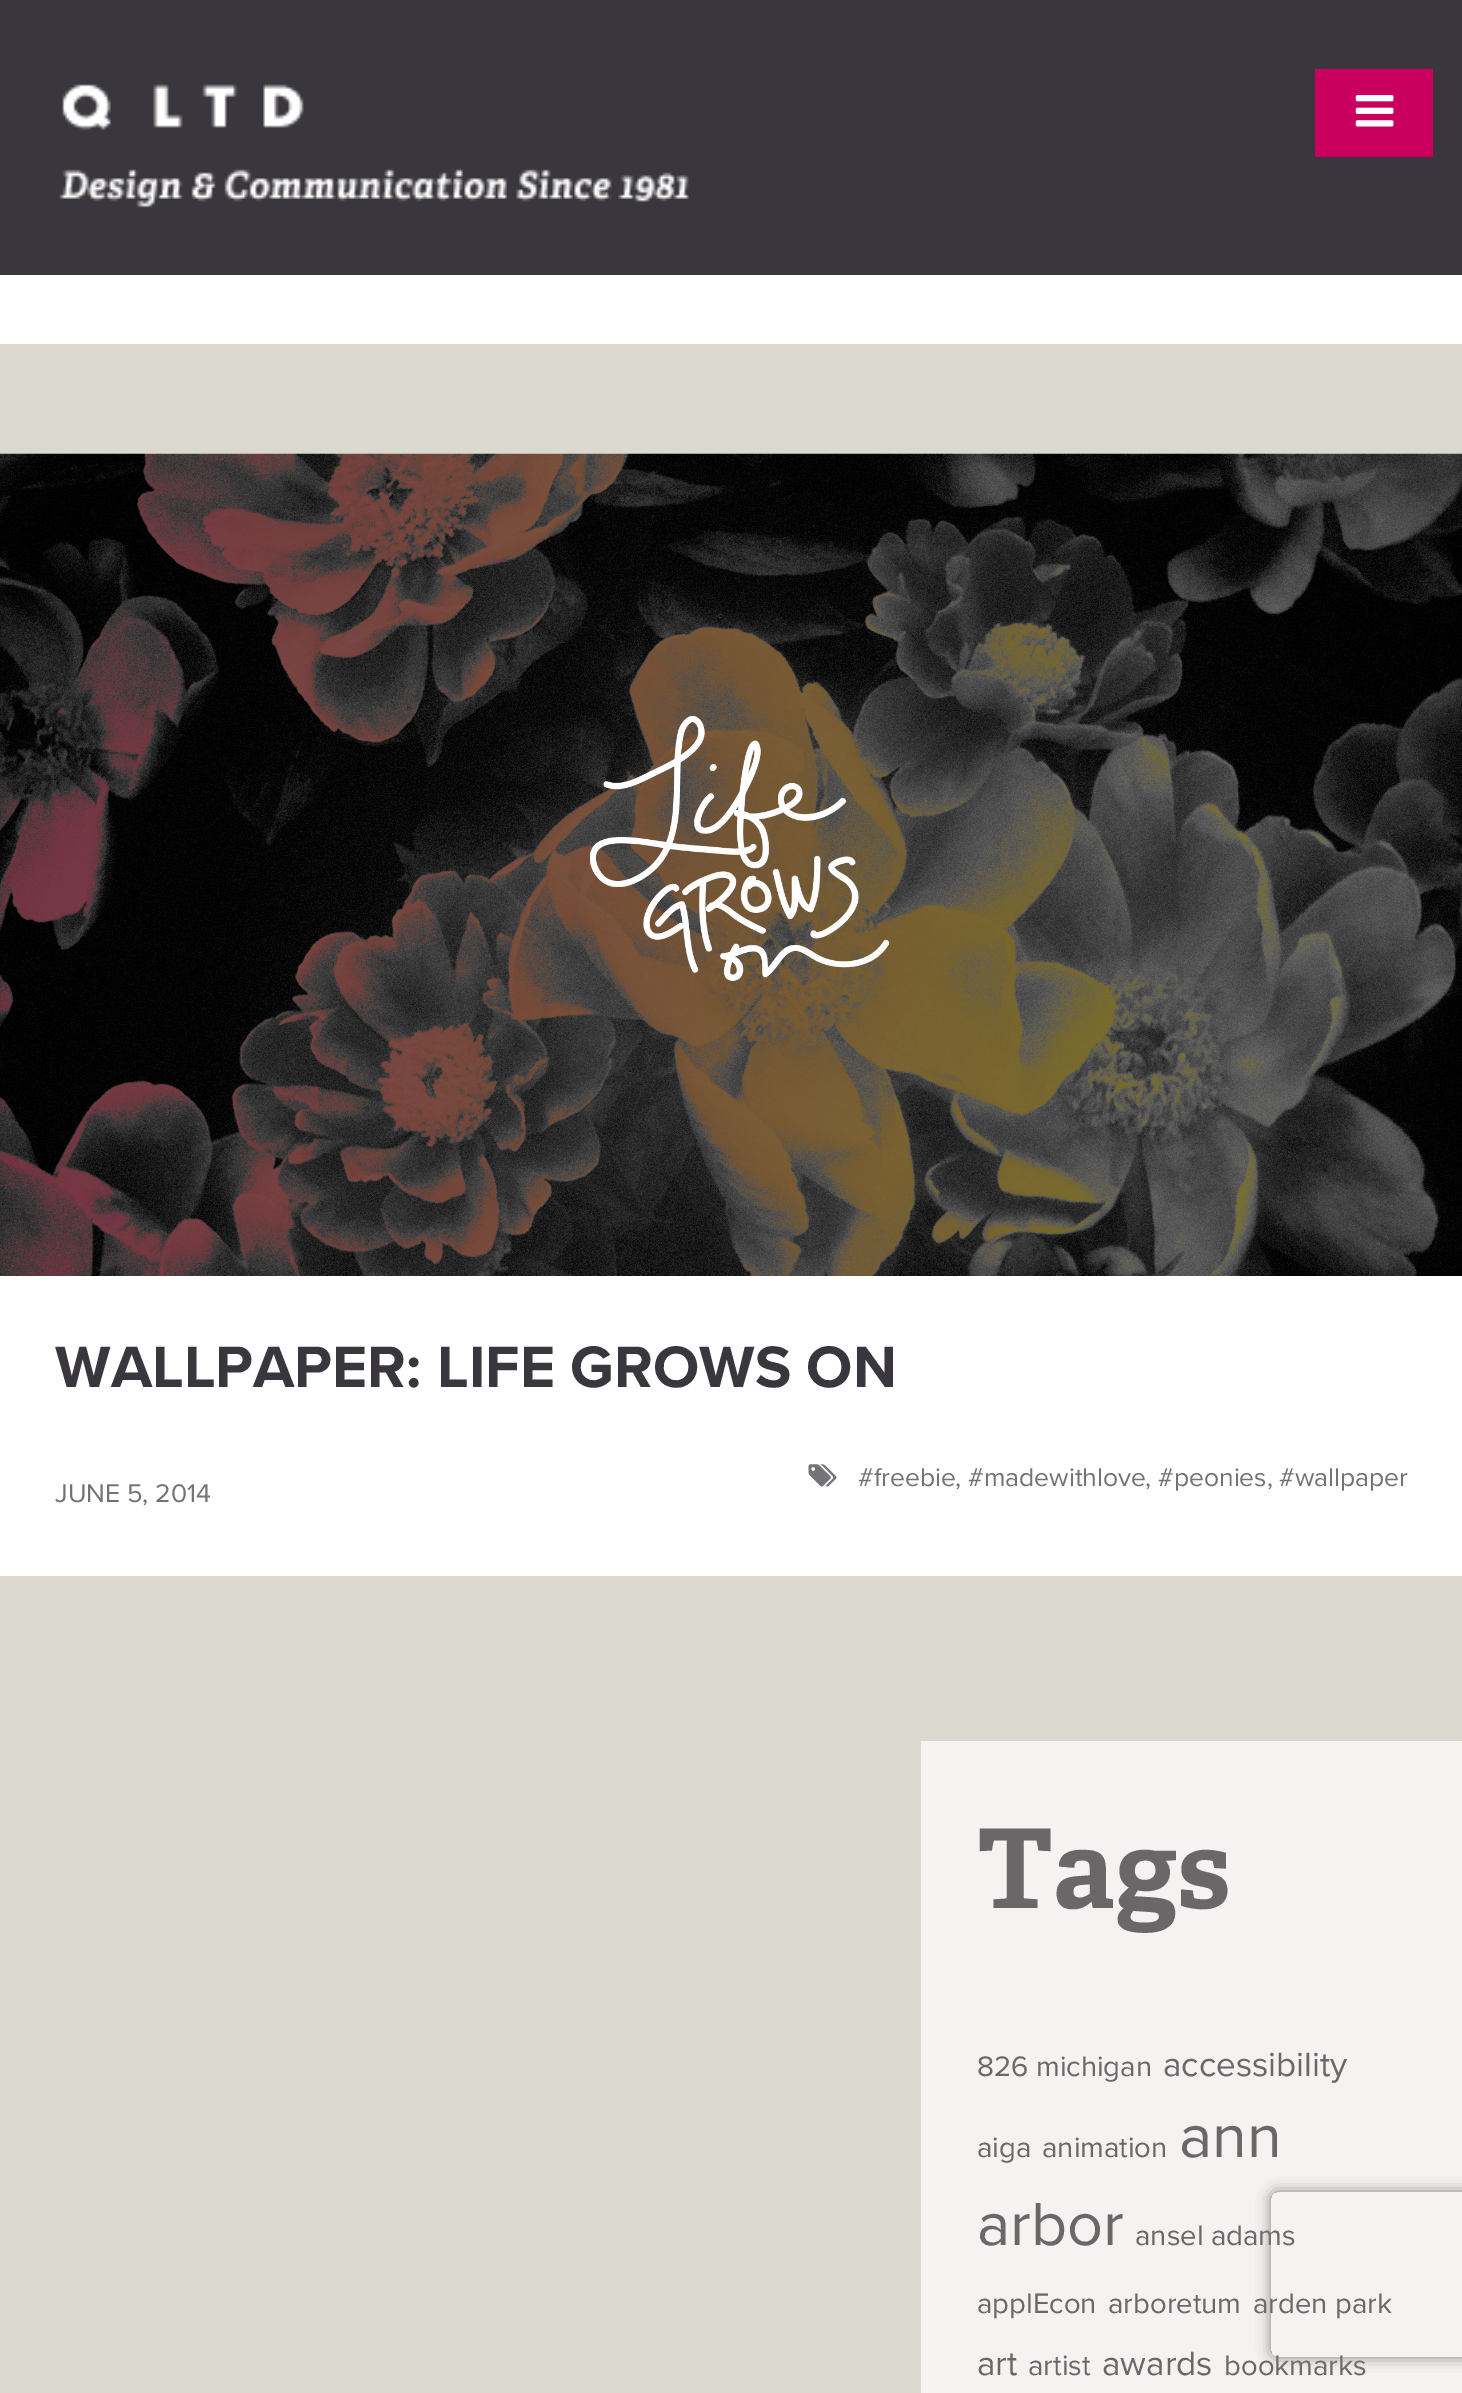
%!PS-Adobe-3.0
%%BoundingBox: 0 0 1462 2393
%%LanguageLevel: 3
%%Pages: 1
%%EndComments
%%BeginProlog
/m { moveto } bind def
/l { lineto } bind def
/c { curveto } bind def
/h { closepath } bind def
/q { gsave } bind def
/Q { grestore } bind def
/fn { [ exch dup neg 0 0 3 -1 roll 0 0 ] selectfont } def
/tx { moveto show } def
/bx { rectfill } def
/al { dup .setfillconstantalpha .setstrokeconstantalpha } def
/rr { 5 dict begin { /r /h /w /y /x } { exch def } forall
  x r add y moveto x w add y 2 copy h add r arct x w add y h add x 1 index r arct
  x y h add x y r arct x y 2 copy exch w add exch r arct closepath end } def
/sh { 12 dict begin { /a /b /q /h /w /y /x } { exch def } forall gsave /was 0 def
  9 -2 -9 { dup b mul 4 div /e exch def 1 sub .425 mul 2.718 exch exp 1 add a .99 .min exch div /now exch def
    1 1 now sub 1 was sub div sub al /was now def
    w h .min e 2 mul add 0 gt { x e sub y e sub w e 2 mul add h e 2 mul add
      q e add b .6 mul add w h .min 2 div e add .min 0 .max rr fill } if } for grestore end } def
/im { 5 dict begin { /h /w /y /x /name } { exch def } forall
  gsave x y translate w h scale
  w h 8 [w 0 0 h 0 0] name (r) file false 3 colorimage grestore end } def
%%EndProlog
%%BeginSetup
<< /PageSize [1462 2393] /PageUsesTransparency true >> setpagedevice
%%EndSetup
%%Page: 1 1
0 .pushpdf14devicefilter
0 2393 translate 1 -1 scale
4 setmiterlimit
1 setgray
0 0 1462 2393 bx
0.227 0.212 0.239 setrgbcolor
0 0 1462 275 bx
(image0.raw) 59 84 630 124 im
0.788 0 0.365 setrgbcolor
1315 69 118 88 bx
(image1.raw) 1355 95 39 32 im
0.859 0.851 0.812 setrgbcolor
0 344 1462 2049 bx
1 setgray
0 1276 1462 300 bx
(image2.raw) 0 453 1462 823 im
/ProximaNova-Bold 60.5 fn
0.227 0.212 0.239 setrgbcolor
(WALLPAPER: LIFE GROWS ON) 55 1387 tx
(image3.raw) 808 1464 29 23 im
/ProximaNova-Regular 26.5 fn
0.459 0.447 0.467 setrgbcolor
(#freebie) 858 1486 tx
(,) 955 1486 tx
(#madewithlove) 968 1486 tx
(,) 1145 1486 tx
(#peonies) 1158 1486 tx
(,) 1267 1486 tx
(#wallpaper) 1279 1486 tx
(JUNE 5, 2014) 55 1502 tx
0.957 0.953 0.945 setrgbcolor
921 1741 541 652 bx
/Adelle-Bold 110 fn
0.416 0.404 0.412 setrgbcolor
(Tags) 977 1908 tx
/ProximaNova-Regular 29.25 fn
(826 michigan) 977 2076 tx
/ProximaNova-Regular 35 fn
(accessibility) 1163 2076 tx
/ProximaNova-Regular 29.25 fn
(aiga) 977 2157 tx
(animation) 1042 2157 tx
/ProximaNova-Regular 63 fn
(ann) 1179 2157 tx
(arbor) 977 2245 tx
/ProximaNova-Regular 29.25 fn
(ansel adams) 1135 2245 tx
(applEcon) 977 2313 tx
(arboretum) 1108 2313 tx
(arden park) 1253 2313 tx
/ProximaNova-Regular 35 fn
(art) 977 2375 tx
/ProximaNova-Regular 29.25 fn
(artist) 1028 2375 tx
/ProximaNova-Regular 35 fn
(awards) 1102 2375 tx
/ProximaNova-Regular 29.25 fn
(bookmarks) 1224 2375 tx
q
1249 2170 m 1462 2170 l 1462 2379 l 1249 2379 l h 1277 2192 m 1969 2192 l 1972.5 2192 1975 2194.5 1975 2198 c 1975 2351 l 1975 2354.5 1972.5 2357 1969 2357 c 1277 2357 l 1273.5 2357 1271 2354.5 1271 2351 c 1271 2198 l 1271 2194.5 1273.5 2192 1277 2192 c h eoclip newpath
0.502 setgray
1271 2192 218 165 6 7 1 sh
Q
.poppdf14devicefilter showpage
%%EOF
